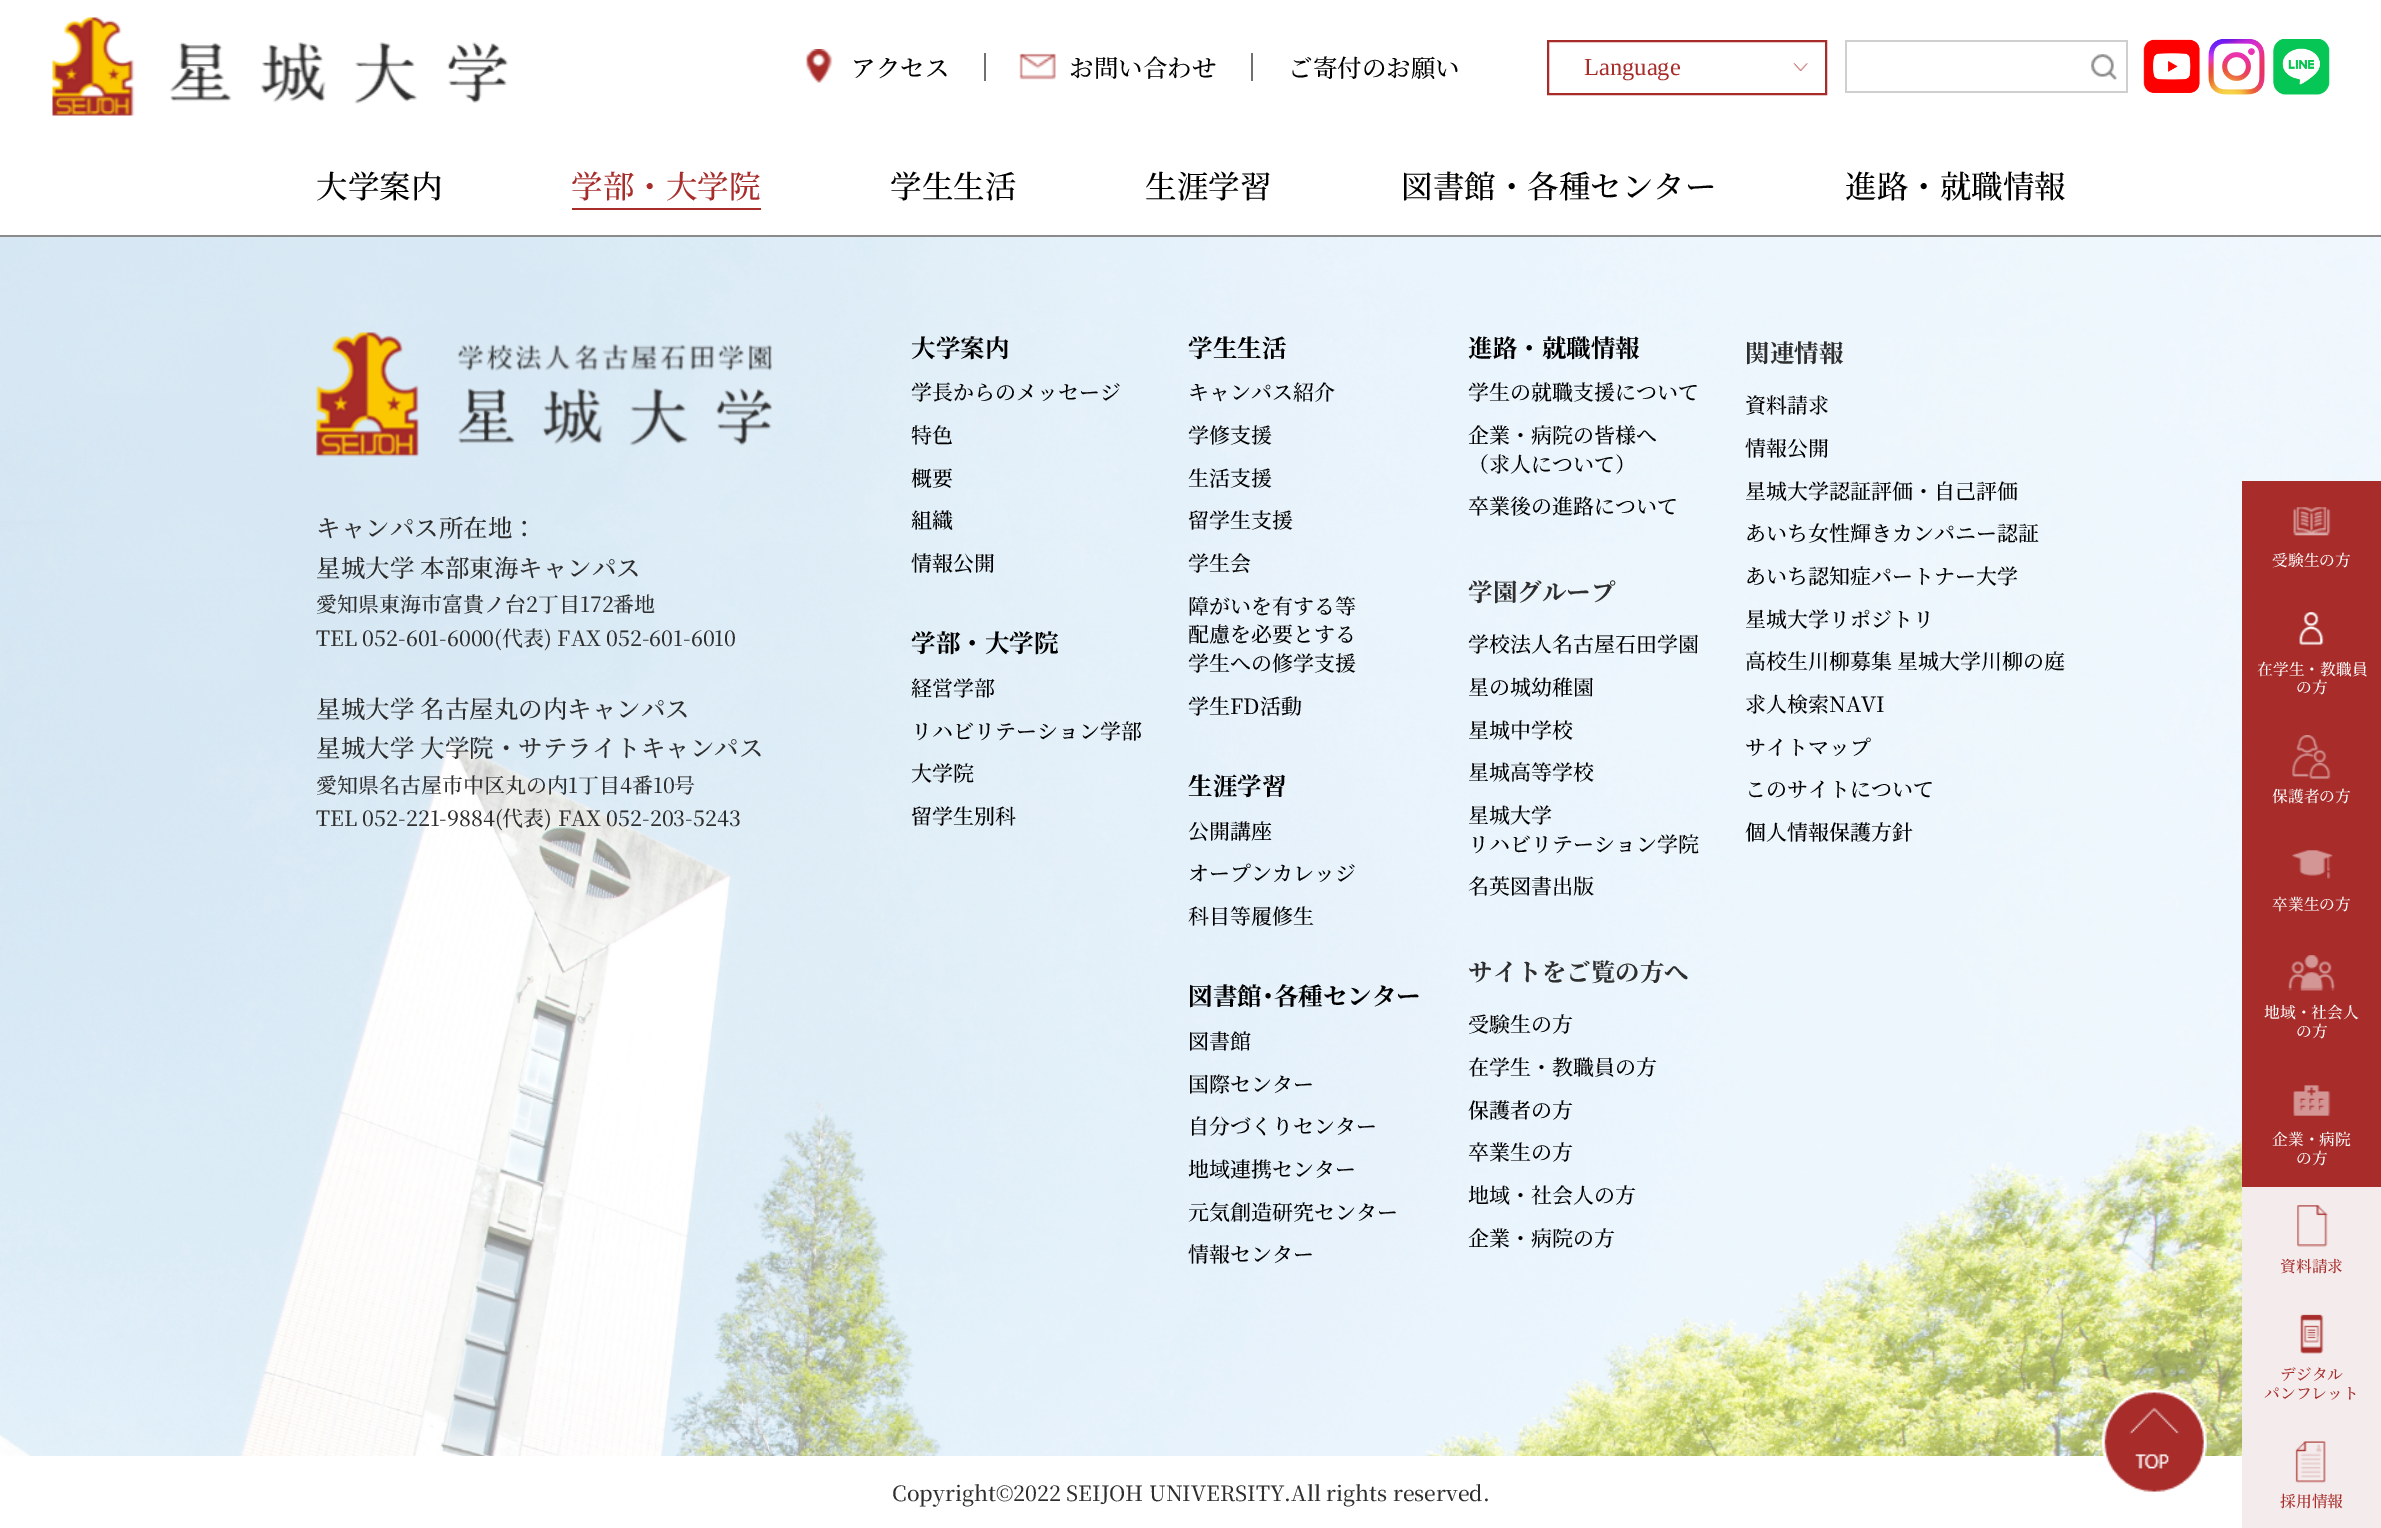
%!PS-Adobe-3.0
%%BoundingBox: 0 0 2381 1528
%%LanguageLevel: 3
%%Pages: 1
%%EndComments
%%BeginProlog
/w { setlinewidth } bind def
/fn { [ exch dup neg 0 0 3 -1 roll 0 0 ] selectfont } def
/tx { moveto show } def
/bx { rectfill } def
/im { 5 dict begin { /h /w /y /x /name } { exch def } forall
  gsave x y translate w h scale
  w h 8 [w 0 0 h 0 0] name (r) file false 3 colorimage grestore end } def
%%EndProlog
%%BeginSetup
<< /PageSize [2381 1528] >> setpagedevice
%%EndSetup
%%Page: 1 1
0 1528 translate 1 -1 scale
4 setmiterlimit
1 setgray
0 0 2381 1528 bx
0.545 setgray
0 235 2381 2 bx
(image0.raw) 52 17 456 99 im
0.439 setgray
984 53 2 28 bx
(image1.raw) 805 49 28 34 im
/NotoSerifJP-Medium 24.5 fn
0 setgray
(アクセス) 851 77 tx
0.439 setgray
1251 53 2 28 bx
(image2.raw) 1019 53 37 27 im
0 setgray
(お問い合わせ) 1069 77 tx
(ご寄付のお願い) 1288 77 tx
(image3.raw) 1793 63 15 8 im
0.655 0.173 0.165 setrgbcolor
2 w
1548 41 278 53 rectstroke
/LiberationSerif-Regular 24.5 fn
(Language) 1584 75 tx
0.812 setgray
1845 40 283 2 bx
2126 40 2 53 bx
1845 91 283 2 bx
1845 40 2 53 bx
(image4.raw) 2091 54 26 26 im
(image5.raw) 2143 39 57 54 im
(image6.raw) 2208 39 57 56 im
(image7.raw) 2273 39 57 56 im
/NotoSerifJP-Medium 31.5 fn
0 setgray
(大学案内) 316 198 tx
0.655 0.173 0.165 setrgbcolor
(学部・大学院) 571 198 tx
572 208 189 2 bx
0 setgray
(学生生活) 890 198 tx
(生涯学習) 1145 198 tx
(図書館・各種センター) 1401 198 tx
(進路・就職情報) 1845 198 tx
(image17.raw) 0 237 2381 1219 im
0.655 0.173 0.165 setrgbcolor
2242 481 139 706 bx
(image8.raw) 2293 507 38 29 im
/NotoSerifJP-Medium 15.75 fn
1 setgray
(受験生の方) 2272 566 tx
(image9.raw) 2299 612 25 34 im
(在学生・教職員) 2257 675 tx
(の方) 2296 693 tx
(image10.raw) 2292 735 39 44 im
(保護者の方) 2272 802 tx
(image11.raw) 2292 850 41 29 im
(卒業生の方) 2272 910 tx
(image12.raw) 2288 955 47 36 im
(地域・社会人) 2264 1018 tx
(の方) 2296 1037 tx
(image13.raw) 2293 1085 38 31 im
(企業・病院) 2272 1145 tx
(の方) 2296 1164 tx
0.957 0.925 0.925 setrgbcolor
2242 1187 139 341 bx
(image14.raw) 2297 1205 31 42 im
0.655 0.173 0.165 setrgbcolor
(資料請求) 2280 1272 tx
(image15.raw) 2300 1314 24 40 im
(デジタル) 2280 1380 tx
(パンフレット) 2264 1399 tx
(image16.raw) 2295 1441 31 42 im
(採用情報) 2280 1507 tx
(image18.raw) 316 332 456 125 im
/NotoSerifJP-Medium 24.5 fn
0.18 setgray
(キャンパス所在地：) 316 537 tx
(星城大学 本部東海キャンパス) 316 577 tx
/NotoSerifJP-Medium 21 fn
(愛知県東海市富貴ノ台2丁目172番地) 316 612 tx
(TEL 052-601-6000\(代表\) FAX 052-601-6010) 316 646 tx
/NotoSerifJP-Medium 24.5 fn
(星城大学 名古屋丸の内キャンパス) 316 718 tx
(星城大学 大学院・サテライトキャンパス) 316 757 tx
/NotoSerifJP-Medium 21 fn
(愛知県名古屋市中区丸の内1丁目4番10号) 316 793 tx
(TEL 052-221-9884\(代表\) FAX 052-203-5243) 316 826 tx
/NotoSerifJP-Bold 24.5 fn
0 setgray
(大学案内) 911 357 tx
/NotoSerifJP-Medium 21 fn
(学長からのメッセージ) 911 400 tx
(特色) 911 443 tx
(概要) 911 486 tx
(組織) 911 528 tx
(情報公開) 911 571 tx
/NotoSerifJP-Bold 24.5 fn
(学部・大学院) 911 652 tx
/NotoSerifJP-Medium 21 fn
(経営学部) 911 696 tx
(リハビリテーション学部) 911 739 tx
(大学院) 911 781 tx
(留学生別科) 911 824 tx
/NotoSerifJP-Bold 24.5 fn
(学生生活) 1188 357 tx
/NotoSerifJP-Medium 21 fn
(キャンパス紹介) 1188 400 tx
(学修支援) 1188 443 tx
(生活支援) 1188 486 tx
(留学生支援) 1188 528 tx
(学生会) 1188 571 tx
(障がいを有する等) 1188 614 tx
(配慮を必要とする) 1188 642 tx
(学生への修学支援) 1188 671 tx
(学生FD活動) 1188 714 tx
/NotoSerifJP-Bold 24.5 fn
(生涯学習) 1188 795 tx
/NotoSerifJP-Medium 21 fn
(公開講座) 1188 839 tx
(オープンカレッジ) 1188 881 tx
(科目等履修生) 1188 924 tx
/NotoSerifJP-Bold 24.5 fn
(図書館･各種センター) 1188 1005 tx
/NotoSerifJP-Medium 21 fn
(図書館) 1188 1049 tx
(国際センター) 1188 1092 tx
(自分づくりセンター) 1188 1134 tx
(地域連携センター) 1188 1177 tx
(元気創造研究センター) 1188 1220 tx
(情報センター) 1188 1262 tx
/NotoSerifJP-Bold 24.5 fn
(進路・就職情報) 1468 357 tx
/NotoSerifJP-Medium 21 fn
(学生の就職支援について) 1468 400 tx
(企業・病院の皆様へ) 1468 443 tx
(（求人について）) 1468 472 tx
(卒業後の進路について) 1468 514 tx
/NotoSerifJP-Bold 24.5 fn
0.18 setgray
(学園グループ) 1468 601 tx
/NotoSerifJP-Medium 21 fn
0 setgray
(学校法人名古屋石田学園) 1468 652 tx
(星の城幼稚園) 1468 695 tx
(星城中学校) 1468 738 tx
(星城高等学校) 1468 780 tx
(星城大学) 1468 823 tx
(リハビリテーション学院) 1468 852 tx
(名英図書出版) 1468 894 tx
/NotoSerifJP-Bold 24.5 fn
0.18 setgray
(サイトをご覧の方へ) 1468 981 tx
/NotoSerifJP-Medium 21 fn
0 setgray
(受験生の方) 1468 1032 tx
(在学生・教職員の方) 1468 1075 tx
(保護者の方) 1468 1118 tx
(卒業生の方) 1468 1160 tx
(地域・社会人の方) 1468 1203 tx
(企業・病院の方) 1468 1246 tx
/NotoSerifJP-Bold 24.5 fn
0.18 setgray
(関連情報) 1745 362 tx
/NotoSerifJP-Medium 21 fn
0 setgray
(資料請求) 1745 413 tx
(情報公開) 1745 456 tx
(星城大学認証評価・自己評価) 1745 499 tx
(あいち女性輝きカンパニー認証) 1745 541 tx
(あいち認知症パートナー大学) 1745 584 tx
(星城大学リポジトリ) 1745 627 tx
(高校生川柳募集 星城大学川柳の庭) 1745 669 tx
(求人検索NAVI) 1745 712 tx
(サイトマップ) 1745 755 tx
(このサイトについて) 1745 797 tx
(個人情報保護方針) 1745 840 tx
0.18 setgray
(Copyright©2022 SEIJOH UNIVERSITY.All rights reserved.) 892 1501 tx
(image19.raw) 2101 1389 106 103 im
showpage
%%EOF
